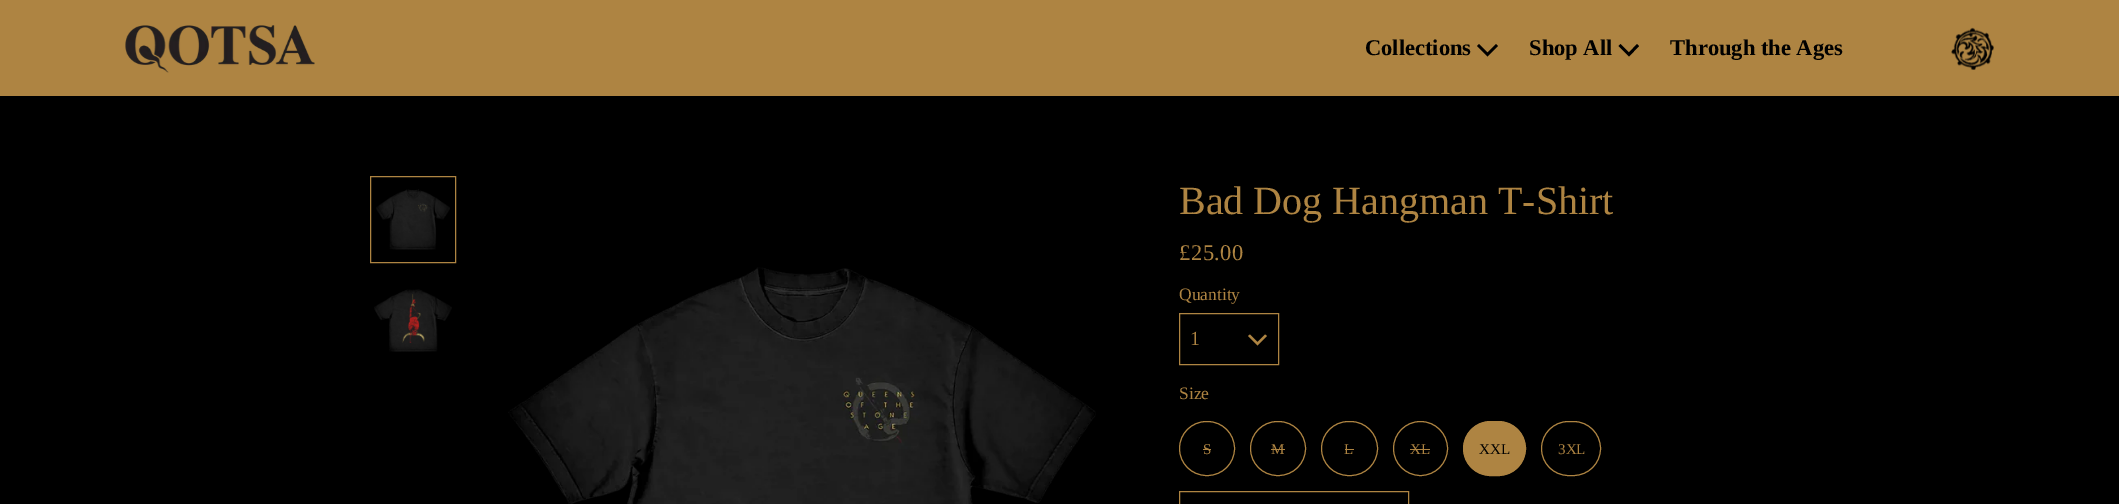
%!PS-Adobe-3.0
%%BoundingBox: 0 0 2119 504
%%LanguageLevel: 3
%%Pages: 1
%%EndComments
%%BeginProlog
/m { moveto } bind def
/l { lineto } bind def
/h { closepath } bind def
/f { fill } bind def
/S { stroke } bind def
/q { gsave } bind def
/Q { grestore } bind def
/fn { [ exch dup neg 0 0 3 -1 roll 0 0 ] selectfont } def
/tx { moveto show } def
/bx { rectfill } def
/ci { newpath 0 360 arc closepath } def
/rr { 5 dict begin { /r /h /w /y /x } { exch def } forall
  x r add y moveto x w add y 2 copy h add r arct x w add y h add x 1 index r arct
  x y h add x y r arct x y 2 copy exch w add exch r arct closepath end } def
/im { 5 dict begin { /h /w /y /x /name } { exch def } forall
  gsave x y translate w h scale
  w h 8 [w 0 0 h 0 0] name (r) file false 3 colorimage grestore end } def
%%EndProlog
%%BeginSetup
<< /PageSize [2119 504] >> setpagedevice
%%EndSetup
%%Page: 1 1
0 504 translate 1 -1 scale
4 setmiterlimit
0 setgray
0 0 2119 504 bx
0.682 0.518 0.259 setrgbcolor
0 0 2119 96 bx
(image0.raw) 125 25 190 48 im
/LiberationSerif-Bold 22.5 fn
0 setgray
(Collections) 1365 55 tx
1487.5 56.5 m 1498 46 l 1496 44 l 1487.5 52.5 l 1479 44 l 1477 46 l h f
(Shop All) 1529 55 tx
1629 56.5 m 1639 46 l 1637 44 l 1629 52.5 l 1620.5 44 l 1618.5 46 l h f
(Through the Ages) 1670 55 tx
(image1.raw) 1951 27 43 43 im
0.682 0.518 0.259 setrgbcolor
370.5 176.5 85 86 rectstroke
(image2.raw) 376 189 74 61 im
(image3.raw) 374 289 78 63 im
(image4.raw) 508 267 588 237 im
/LiberationSerif-Regular 40 fn
(Bad Dog Hangman T-Shirt) 1179 214 tx
/LiberationSerif-Regular 22.5 fn
1179 260 m 0.5 0 (£25.00) ashow
/LiberationSerif-Regular 17.5 fn
(Quantity) 1179 300 tx
1179.5 313.5 99 51 rectstroke
/LiberationSerif-Regular 20 fn
(1) 1190 345 tx
1257.5 345.5 m 1267 336 l 1265 334.5 l 1257.5 342 l 1250 334.5 l 1248 336 l h f
/LiberationSerif-Regular 17.5 fn
(Size) 1179 399 tx
1179.5 421.5 55 54 27 rr S
/LiberationSerif-Regular 15 fn
(S) 1203 454 tx
1203 449 8 1 bx
1250.5 421.5 55 54 27 rr S
(M) 1271 454 tx
1271 449 14 1 bx
1321.5 421.5 56 54 27 rr S
(L) 1344 454 tx
1345 449 9 1 bx
1420.5 448.5 27 ci S
(XL) 1410 454 tx
1410 449 20 1 bx
1463.5 421.5 62 54 27 rr q f Q
S
0 setgray
(XXL) 1479 454 tx
0.682 0.518 0.259 setrgbcolor
1541.5 421.5 59 54 27 rr S
(3XL) 1558 454 tx
1179.5 491.5 229 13 rectstroke
showpage
%%EOF
